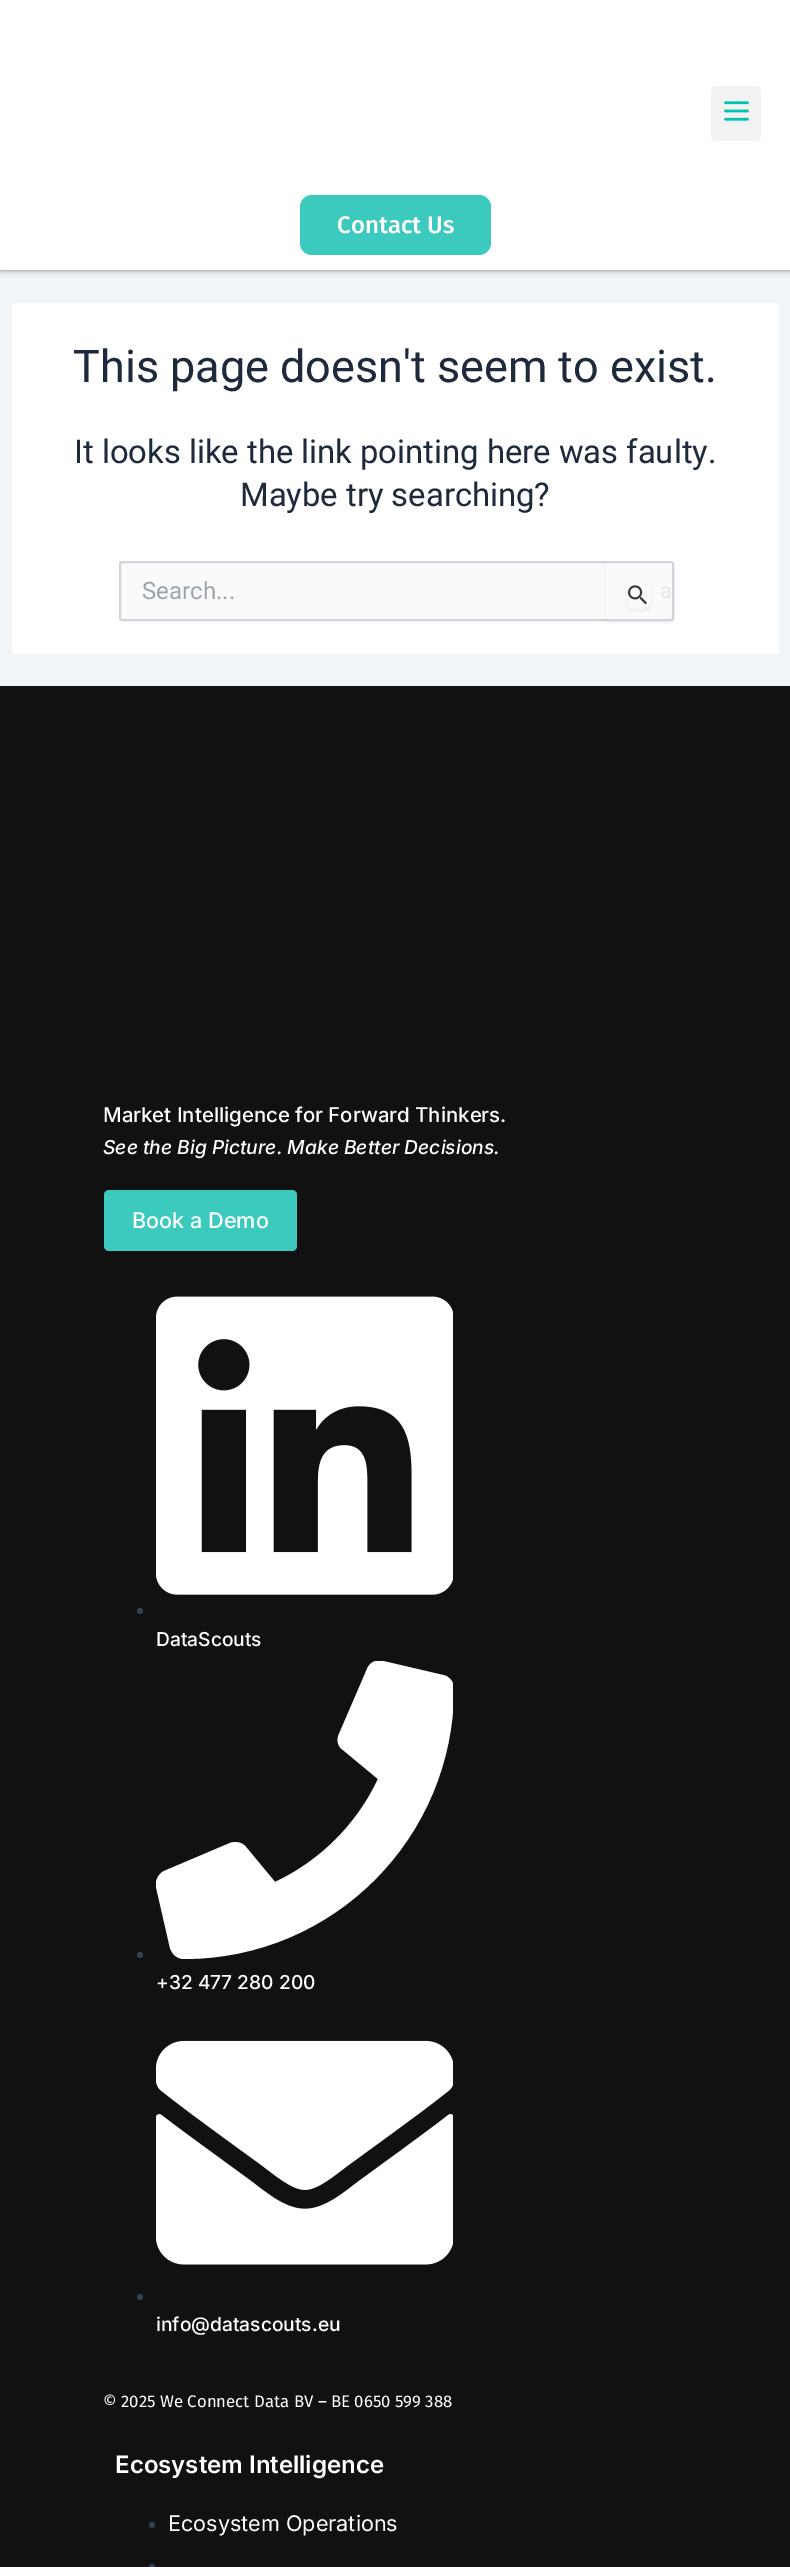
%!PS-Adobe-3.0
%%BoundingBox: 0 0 790 2567
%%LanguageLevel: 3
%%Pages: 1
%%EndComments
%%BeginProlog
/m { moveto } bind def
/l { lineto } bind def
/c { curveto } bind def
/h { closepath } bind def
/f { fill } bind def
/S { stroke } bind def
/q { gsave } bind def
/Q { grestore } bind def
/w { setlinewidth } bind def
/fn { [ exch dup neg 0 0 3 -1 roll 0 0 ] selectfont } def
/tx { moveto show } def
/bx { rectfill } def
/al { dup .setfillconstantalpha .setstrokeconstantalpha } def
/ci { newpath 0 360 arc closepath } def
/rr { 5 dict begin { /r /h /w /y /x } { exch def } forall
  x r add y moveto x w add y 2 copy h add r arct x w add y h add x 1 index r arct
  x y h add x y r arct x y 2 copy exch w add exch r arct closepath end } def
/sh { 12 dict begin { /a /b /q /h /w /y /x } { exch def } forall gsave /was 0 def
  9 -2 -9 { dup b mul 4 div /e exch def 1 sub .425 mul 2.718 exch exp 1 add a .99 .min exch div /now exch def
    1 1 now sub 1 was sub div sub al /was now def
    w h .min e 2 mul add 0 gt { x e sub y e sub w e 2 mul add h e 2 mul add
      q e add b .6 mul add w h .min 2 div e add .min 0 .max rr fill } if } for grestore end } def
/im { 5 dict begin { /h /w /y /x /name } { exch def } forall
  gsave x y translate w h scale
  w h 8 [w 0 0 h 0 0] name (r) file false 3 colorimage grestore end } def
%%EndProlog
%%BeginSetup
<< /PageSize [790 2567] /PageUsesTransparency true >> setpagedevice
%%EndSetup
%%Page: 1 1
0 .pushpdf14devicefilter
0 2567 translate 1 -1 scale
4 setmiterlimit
0.941 0.961 0.98 setrgbcolor
0 0 790 2567 bx
0 setgray
0 0 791 270 0 3 0.5 sh
1 setgray
0 0 790 270 bx
0.949 setgray
711 86 50 55 5 rr f
(image0.raw) 724 101 25 20 im
0.239 0.792 0.745 setrgbcolor
300 195 191 60 12 rr f
/FiraSans-Medium 24 fn
1 setgray
(Contact Us) 337 233 tx
12 303 767 351 bx
/Roboto-Regular 45 fn
0.118 0.161 0.231 setrgbcolor
(This page doesn't seem to exist.) 73 382 tx
/Roboto-Regular 32.8 fn
(It looks like the link pointing here was faulty.) 74 463 tx
(Maybe try searching?) 240 506 tx
0.98 setgray
120 562 553 58 2 rr q f Q
0.82 0.835 0.859 setrgbcolor
2 w
S
/Roboto-Regular 24 fn
0.612 0.639 0.686 setrgbcolor
(Search...) 142 599 tx
q
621 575 m 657 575 l 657 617 l 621 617 l h 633 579 m 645 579 l 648.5 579 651 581.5 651 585 c 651 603 l 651 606.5 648.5 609 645 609 c 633 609 l 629.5 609 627 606.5 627 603 c 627 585 l 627 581.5 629.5 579 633 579 c h eoclip newpath
0 setgray
627 581 24 30 6 1.5 0.05 sh
Q
(image1.raw) 628 585 19 20 im
q
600 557 m 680 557 l 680 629 l 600 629 l h 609 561 m 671 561 l 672.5 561 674 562.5 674 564 c 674 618 l 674 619.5 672.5 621 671 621 c 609 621 l 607.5 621 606 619.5 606 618 c 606 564 l 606 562.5 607.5 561 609 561 c h eoclip newpath
0 setgray
606 563 68 60 3 1.5 0.05 sh
Q
/Roboto-Medium 22 fn
0.91 0.914 0.914 setrgbcolor
(a) 660 598 tx
0.067 setgray
0 686 790 1881 bx
/Inter-Medium 20.4 fn
1 setgray
(Market Intelligence for Forward Thinkers.) 103 1122 tx
/Inter-MediumItalic 19.2 fn
(See the Big Picture. Make Better Decisions.) 103 1154 tx
0.239 0.792 0.745 setrgbcolor
104 1190 193 61 5 rr f
/Inter-Medium 21.6 fn
1 setgray
(Book a Demo) 132 1228 tx
0.2 0.255 0.333 setrgbcolor
140 1611 3 ci f
(image2.raw) 156 1296 297 299 im
/Inter-Medium 19.2 fn
1 setgray
(DataScouts) 156 1646 tx
0.2 0.255 0.333 setrgbcolor
140 1955 3 ci f
q
156 1661 297 298 rectclip
1 setgray
443 1675 m 383 1661 l 376 1659 369 1663 367 1669 c 339 1734 l 336 1740 338 1747 343 1750 c 378 1779 l 357 1824 320 1861 275 1882 c 246 1847 l 242 1842 235 1841 230 1843 c 164 1871 l 158 1874 155 1881 156 1887 c 170 1948 l 172 1954 177 1959 184 1959 c 333 1959 454 1838 454 1688 c 454 1682 449 1676 443 1675 c h f
Q
1 setgray
(+32 477 280 200) 156 1989 tx
0.2 0.255 0.333 setrgbcolor
140 2297 3 ci f
(image3.raw) 156 2040 297 225 im
1 setgray
(info@datascouts.eu) 156 2331 tx
/FiraSans-Regular 16.8 fn
(© 2025 We Connect Data BV – BE 0650 599 388) 103 2407 tx
/Inter-SemiBold 24 fn
(Ecosystem Intelligence) 115 2473 tx
0.2 0.255 0.333 setrgbcolor
152 2525 3 ci f
/Inter-Regular 21.6 fn
1 setgray
(Ecosystem Operations) 168 2531 tx
0.2 0.255 0.333 setrgbcolor
152 2567 3 ci f
.poppdf14devicefilter showpage
%%EOF
